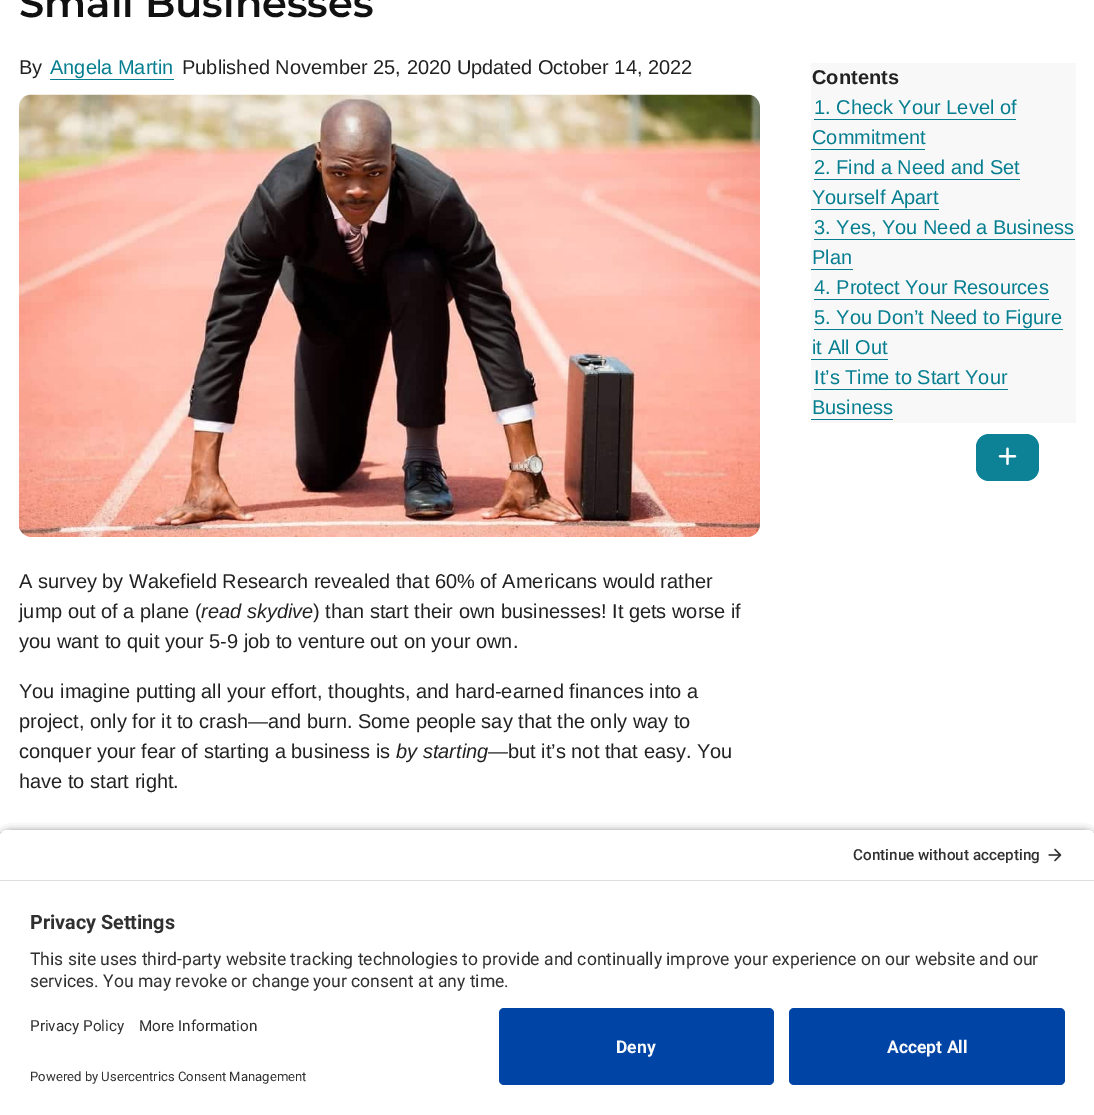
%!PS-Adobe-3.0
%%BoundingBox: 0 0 1094 1115
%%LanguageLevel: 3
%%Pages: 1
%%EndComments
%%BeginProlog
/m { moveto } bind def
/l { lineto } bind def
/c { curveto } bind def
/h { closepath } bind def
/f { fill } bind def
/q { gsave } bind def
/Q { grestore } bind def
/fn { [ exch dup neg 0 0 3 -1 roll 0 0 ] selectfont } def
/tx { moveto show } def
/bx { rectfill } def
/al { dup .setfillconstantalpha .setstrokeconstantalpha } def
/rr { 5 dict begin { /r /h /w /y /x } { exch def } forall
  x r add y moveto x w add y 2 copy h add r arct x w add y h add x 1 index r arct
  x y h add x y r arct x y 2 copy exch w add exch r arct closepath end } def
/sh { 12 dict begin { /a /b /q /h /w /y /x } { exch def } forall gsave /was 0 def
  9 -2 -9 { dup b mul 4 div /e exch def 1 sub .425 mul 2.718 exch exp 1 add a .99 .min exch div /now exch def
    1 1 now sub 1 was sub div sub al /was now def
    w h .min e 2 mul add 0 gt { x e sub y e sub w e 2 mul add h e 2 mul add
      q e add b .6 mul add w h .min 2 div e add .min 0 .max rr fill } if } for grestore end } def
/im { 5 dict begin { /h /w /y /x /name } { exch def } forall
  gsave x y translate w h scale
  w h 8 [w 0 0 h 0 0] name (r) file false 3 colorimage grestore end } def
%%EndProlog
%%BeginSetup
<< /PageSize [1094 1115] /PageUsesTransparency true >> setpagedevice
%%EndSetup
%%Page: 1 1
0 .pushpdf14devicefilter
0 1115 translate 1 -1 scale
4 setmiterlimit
1 setgray
0 0 1094 1115 bx
/Montserrat-SemiBold 40 fn
0.067 setgray
(Small Businesses) 19 17 tx
/LiberationSans-Regular 20 fn
0.133 setgray
(By) 19 74 tx
0.02 0.494 0.565 setrgbcolor
(Angela Martin) 50 74 tx
50 79 124 1 bx
0.133 setgray
(Published November 25, 2020 Updated October 14, 2022) 182 74 tx
(image0.raw) 18 94 742 443 im
(A survey by Wakefield Research revealed that 60% of Americans would rather) 19 588 tx
(jump out of a plane \() 19 618 tx
/LiberationSans-Italic 20 fn
(read skydive) 201 618 tx
/LiberationSans-Regular 20 fn
(\) than start their own businesses! It gets worse if) 313 618 tx
(you want to quit your 5-9 job to venture out on your own.) 19 648 tx
(You imagine putting all your effort, thoughts, and hard-earned finances into a) 19 698 tx
(project, only for it to crash—and burn. Some people say that the only way to) 19 728 tx
(conquer your fear of starting a business is) 19 758 tx
/LiberationSans-Italic 20 fn
(by starting) 396 758 tx
/LiberationSans-Regular 20 fn
(—but it’s not that easy. You) 488 758 tx
(have to start right.) 19 788 tx
0.973 setgray
811 63 265 360 bx
/LiberationSans-Bold 20 fn
0.133 setgray
(Contents) 812 84 tx
/LiberationSans-Regular 20 fn
0.02 0.494 0.565 setrgbcolor
(1. Check Your Level of) 814 114 tx
814 119 202 1 bx
(Commitment) 812 144 tx
811 149 114 1 bx
(2. Find a Need and Set) 814 174 tx
814 179 206 1 bx
(Yourself Apart) 812 204 tx
811 209 128 1 bx
(3. Yes, You Need a Business) 814 234 tx
814 239 261 1 bx
(Plan) 812 264 tx
811 269 42 1 bx
(4. Protect Your Resources) 814 294 tx
814 299 235 1 bx
(5. You Don’t Need to Figure) 814 324 tx
814 329 249 1 bx
(it All Out) 812 354 tx
811 359 77 1 bx
(It’s Time to Start Your) 814 384 tx
814 389 194 1 bx
(Business) 812 414 tx
811 419 82 1 bx
0.051 0.51 0.592 setrgbcolor
976 434 63 47 13 rr f
(image1.raw) 998 447 19 18 im
0 setgray
0 833 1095 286 10 4.5 0.8 sh
q
10 829 m 1085 829 l 1090.5 829 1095 833.5 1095 839 c 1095 998 l 0 998 l 0 839 l 0 833.5 4.5 829 10 829 c h clip newpath
1 setgray
0 830 1094 50 bx
Q
0.871 setgray
0 880 1094 1 bx
/Roboto-Medium 15.25 fn
0.188 setgray
(Continue without accepting) 853 860 tx
(image2.raw) 1048 848 14 14 im
1 setgray
0 881 1094 234 bx
/Roboto-Bold 19.75 fn
0.188 setgray
(Privacy Settings) 30 929 tx
/Roboto-Regular 17.5 fn
(This site uses third-party website tracking technologies to provide and continually improve your experience on our website and our) 30 965 tx
(services. You may revoke or change your consent at any time.) 30 987 tx
/Roboto-Regular 15.25 fn
(Privacy Policy) 30 1031 tx
(More Information) 139 1031 tx
/Roboto-Regular 13.1 fn
(Powered by Usercentrics Consent Management) 30 1081 tx
0 0.271 0.647 setrgbcolor
499 1008 275 77 5 rr f
/Roboto-Bold 17.5 fn
0.98 setgray
(Deny) 616 1053 tx
0 0.271 0.647 setrgbcolor
789 1008 276 77 5 rr f
0.98 setgray
(Accept All) 887 1053 tx
.poppdf14devicefilter showpage
%%EOF
